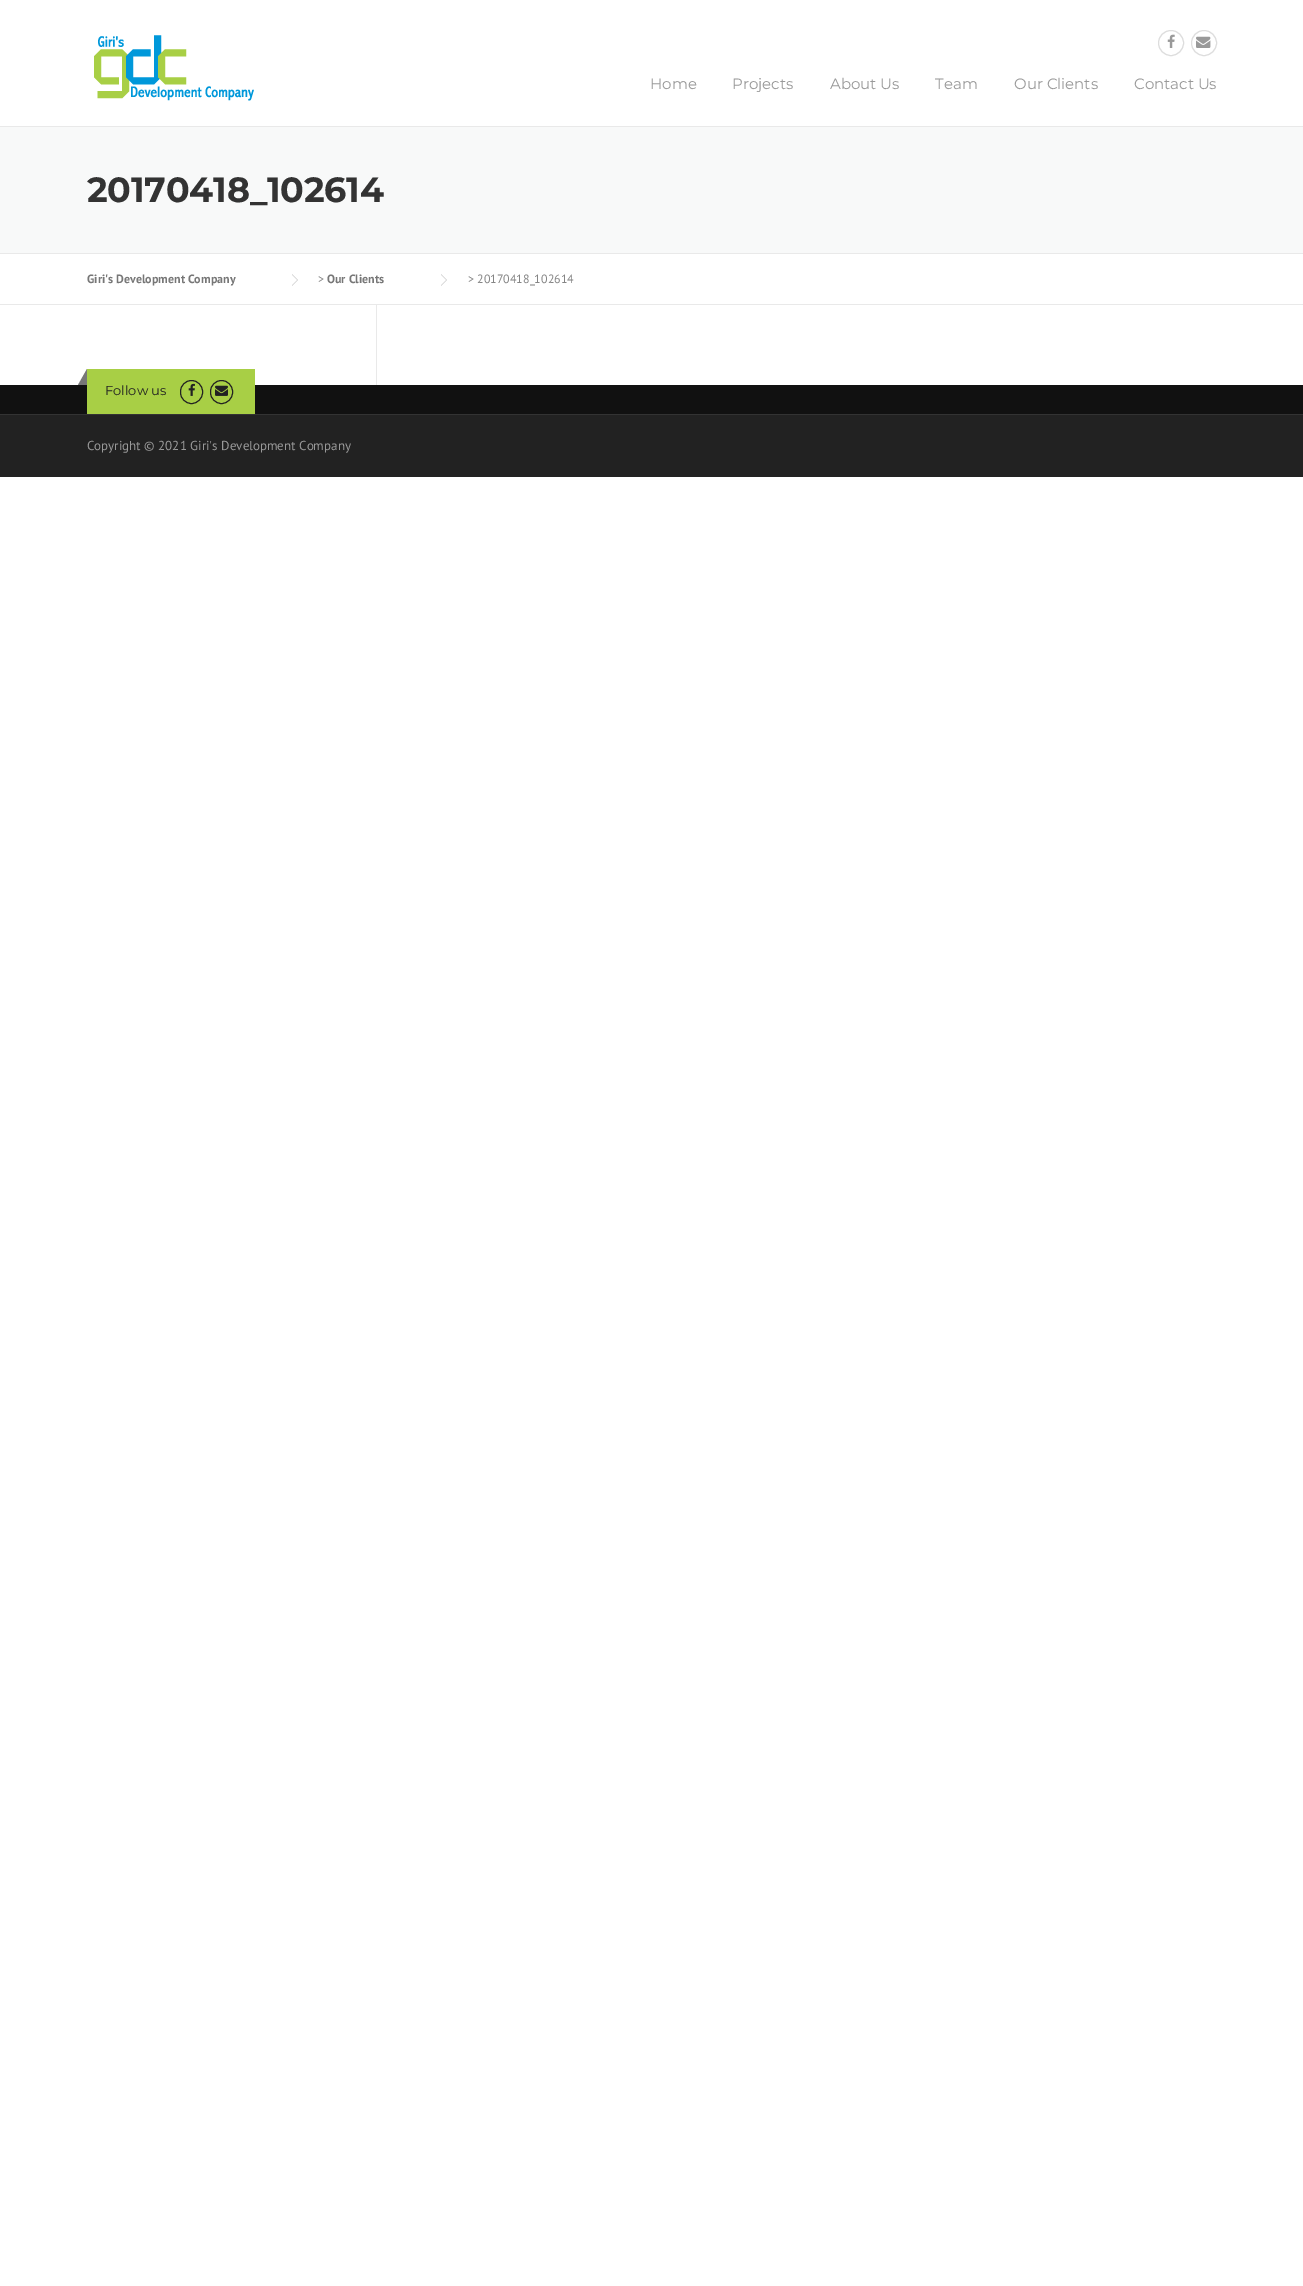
%!PS-Adobe-3.0
%%BoundingBox: 0 0 1303 2286
%%LanguageLevel: 3
%%Pages: 1
%%EndComments
%%BeginProlog
/m { moveto } bind def
/l { lineto } bind def
/h { closepath } bind def
/f { fill } bind def
/S { stroke } bind def
/fn { [ exch dup neg 0 0 3 -1 roll 0 0 ] selectfont } def
/tx { moveto show } def
/bx { rectfill } def
/ci { newpath 0 360 arc closepath } def
/rr { 5 dict begin { /r /h /w /y /x } { exch def } forall
  x r add y moveto x w add y 2 copy h add r arct x w add y h add x 1 index r arct
  x y h add x y r arct x y 2 copy exch w add exch r arct closepath end } def
/im { 5 dict begin { /h /w /y /x /name } { exch def } forall
  gsave x y translate w h scale
  w h 8 [w 0 0 h 0 0] name (r) file false 3 colorimage grestore end } def
%%EndProlog
%%BeginSetup
<< /PageSize [1303 2286] >> setpagedevice
%%EndSetup
%%Page: 1 1
0 2286 translate 1 -1 scale
4 setmiterlimit
1 setgray
0 0 1303 2286 bx
(image0.raw) 94 35 160 66 im
0.867 setgray
1171 43 12.5 ci S
(image1.raw) 1167 34 8 14 im
1204 43 12.5 ci S
(image2.raw) 1196 36 15 12 im
/Montserrat-Regular 15 fn
0.6 setgray
(Home) 650 89 tx
(Projects) 732 89 tx
(About Us) 830 89 tx
(Team) 935 89 tx
(Our Clients) 1014 89 tx
(Contact Us) 1134 89 tx
0.973 0.976 0.976 setrgbcolor
0 127 1303 126 bx
0.914 setgray
0 126 1303 1 bx
0 253 1303 1 bx
/Montserrat-Bold 35 fn
0.2 setgray
87 202 m -0.25 0 (20170418_102614) ashow
0.914 setgray
0 304 1303 1 bx
/PTSans-Bold 12 fn
0.467 setgray
(Giri's Development Company) 87 283 tx
0.8 setgray
292 286 m 292 274 l 298 280 l h f
1 setgray
292 285 m 292 275 l 297 280 l h f
/PTSans-Regular 12 fn
0.522 setgray
(>) 318 283 tx
/PTSans-Bold 12 fn
0.467 setgray
(Our Clients) 327 283 tx
0.8 setgray
441 286 m 441 274 l 447 280 l h f
1 setgray
441 285 m 441 275 l 446 280 l h f
/PTSans-Regular 12 fn
0.522 setgray
(> 20170418_102614) 468 283 tx
0.914 setgray
376 305 1 80 bx
0.067 setgray
0 385 1303 29 bx
0.659 0.812 0.271 setrgbcolor
87 369 168 45 bx
0.467 setgray
87 369 m 87 385 l 78 385 l h f
/Montserrat-Regular 13 fn
0.133 setgray
(Follow us) 105 395 tx
180.5 380.5 22 23 11 rr S
(image3.raw) 188 383 7 13 im
210.5 380.5 22 23 11 rr S
(image4.raw) 215 385 13 11 im
0 415 1303 62 bx
0.2 setgray
0 414 1303 1 bx
/PTSans-Regular 13 fn
0.6 setgray
(Copyright © 2021 Giri's Development Company) 87 450 tx
showpage
%%EOF
